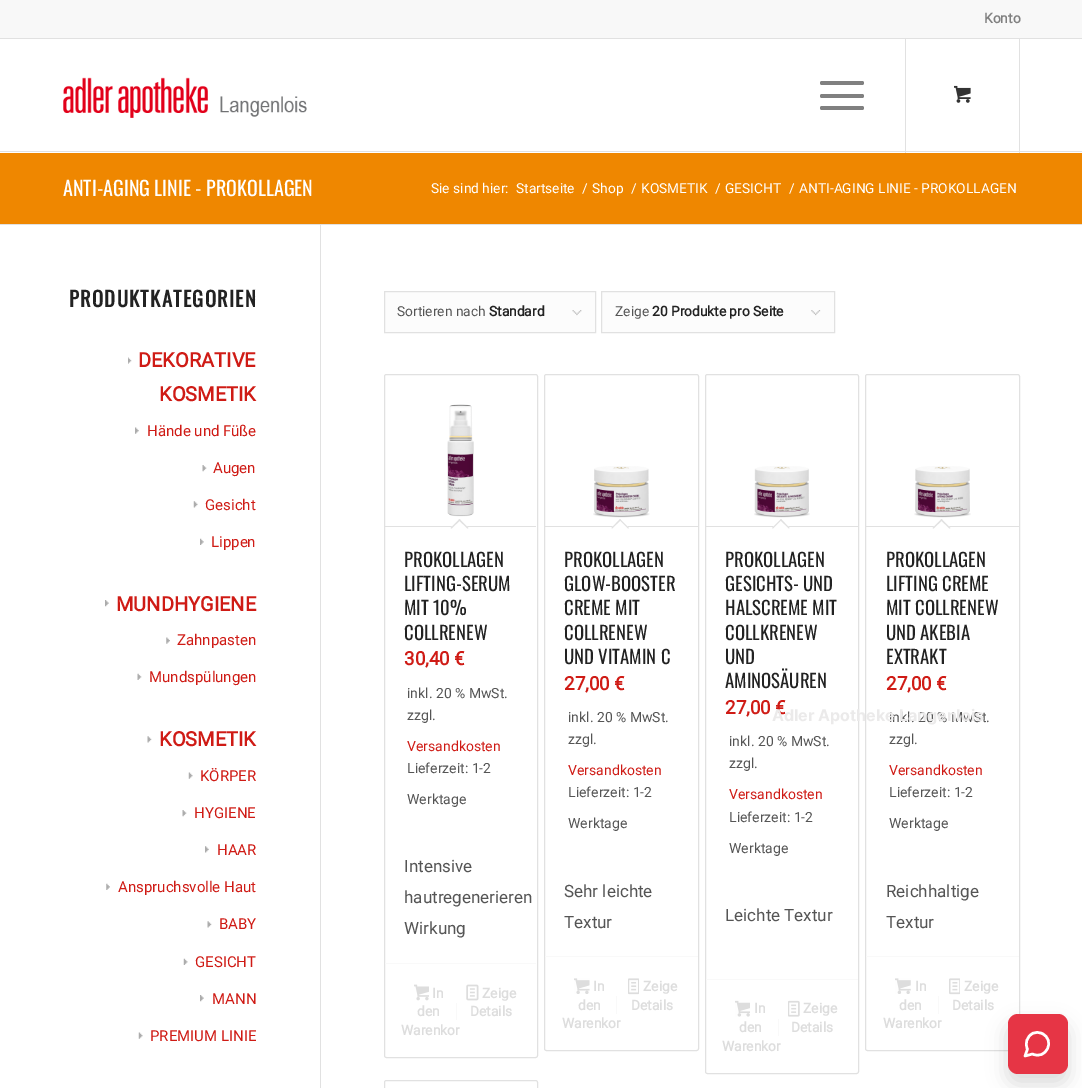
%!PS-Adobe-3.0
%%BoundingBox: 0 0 1082 1088
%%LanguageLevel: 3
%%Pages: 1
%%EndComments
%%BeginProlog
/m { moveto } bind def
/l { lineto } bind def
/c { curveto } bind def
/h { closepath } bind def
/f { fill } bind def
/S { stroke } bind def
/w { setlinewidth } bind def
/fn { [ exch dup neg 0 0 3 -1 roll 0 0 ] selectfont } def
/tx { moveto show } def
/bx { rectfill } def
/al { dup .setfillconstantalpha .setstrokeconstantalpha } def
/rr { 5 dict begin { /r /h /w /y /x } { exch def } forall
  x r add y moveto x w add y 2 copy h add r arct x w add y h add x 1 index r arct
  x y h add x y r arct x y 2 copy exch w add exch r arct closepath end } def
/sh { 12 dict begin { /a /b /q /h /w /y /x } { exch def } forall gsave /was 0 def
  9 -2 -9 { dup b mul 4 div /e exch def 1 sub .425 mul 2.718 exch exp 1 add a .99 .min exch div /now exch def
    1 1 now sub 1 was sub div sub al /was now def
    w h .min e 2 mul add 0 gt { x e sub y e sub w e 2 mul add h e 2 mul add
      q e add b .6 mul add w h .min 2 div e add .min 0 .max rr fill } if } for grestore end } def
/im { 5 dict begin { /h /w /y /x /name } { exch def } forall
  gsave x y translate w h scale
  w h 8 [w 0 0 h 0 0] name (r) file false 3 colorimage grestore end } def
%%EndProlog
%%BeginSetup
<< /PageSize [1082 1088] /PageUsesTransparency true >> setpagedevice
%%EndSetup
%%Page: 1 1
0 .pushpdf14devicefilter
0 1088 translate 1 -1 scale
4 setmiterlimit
1 setgray
0 0 1082 1088 bx
0.973 setgray
0 0 1082 38 bx
0.882 setgray
0 38 1082 1 bx
/Roboto-Bold 13.75 fn
0.502 setgray
(Konto) 984 23 tx
0.882 setgray
0 151 1082 1 bx
(image0.raw) 63 77 244 41 im
0.502 setgray
820 94 44 4 2 rr f
820 81 44 4 2 rr f
820 106 44 4 2 rr f
0.882 setgray
1019 39 1 114 bx
905 39 1 114 bx
(image1.raw) 954 85 17 18 im
0.937 0.529 0 setrgbcolor
0 153 1082 71 bx
/Oswald-Regular 20 fn
1 setgray
(ANTI-AGING LINIE - PROKOLLAGEN) 63 196 tx
/Roboto-Regular 13.75 fn
(Sie sind hier:) 431 193 tx
(Startseite) 516 193 tx
(/) 582 193 tx
(Shop) 592 193 tx
(/) 631 193 tx
(KOSMETIK) 641 193 tx
(/) 715 193 tx
(GESICHT) 725 193 tx
(/) 789 193 tx
(ANTI-AGING LINIE - PROKOLLAGEN) 799 193 tx
0.882 setgray
0 224 1082 1 bx
/Oswald-Bold 20.6 fn
0.133 setgray
69 307 m 1.25 0 (PRODUKTKATEGORIEN) ashow
(image2.raw) 128 357 4 7 im
/Roboto-Bold 20 fn
0.812 0.106 0.082 setrgbcolor
(DEKORATIVE) 138 367 tx
(KOSMETIK) 159 401 tx
(image3.raw) 135 427 4 7 im
/Roboto-Regular 15 fn
(Hände und Füße) 147 436 tx
(image4.raw) 202 465 5 7 im
(Augen) 213 473 tx
(image5.raw) 193 501 5 7 im
(Gesicht) 205 510 tx
(image6.raw) 200 538 4 7 im
(Lippen) 211 547 tx
(image7.raw) 105 600 4 7 im
/Roboto-Bold 20 fn
(MUNDHYGIENE) 116 611 tx
(image8.raw) 166 637 4 7 im
/Roboto-Regular 15 fn
(Zahnpasten) 177 645 tx
(image9.raw) 137 673 5 7 im
(Mundspülungen) 149 682 tx
(image10.raw) 147 736 5 7 im
/Roboto-Bold 20 fn
(KOSMETIK) 159 746 tx
(image11.raw) 188 772 5 7 im
/Roboto-Regular 15 fn
(KÖRPER) 200 781 tx
(image4.raw) 182 810 5 7 im
(HYGIENE) 194 818 tx
(image12.raw) 205 846 4 7 im
(HAAR) 217 855 tx
(image13.raw) 106 883 4 7 im
(Anspruchsvolle Haut) 118 892 tx
(image10.raw) 207 921 5 7 im
(BABY) 219 929 tx
(image14.raw) 183 958 5 7 im
(GESICHT) 195 967 tx
(image7.raw) 200 995 4 7 im
(MANN) 212 1004 tx
(image11.raw) 138 1032 5 7 im
(PREMIUM LINIE) 150 1041 tx
0.882 setgray
320 225 1 863 bx
0.988 setgray
385 292 210 40 bx
(image15.raw) 572 310 10 6 im
0.882 setgray
384.5 291.5 211 41 rectstroke
/Roboto-Regular 13.75 fn
0.333 setgray
(Sortieren nach) 397 316 tx
/Roboto-Bold 13.75 fn
0.133 setgray
(Standard) 489 316 tx
0.988 setgray
602 292 232 40 bx
(image16.raw) 811 310 10 6 im
0.882 setgray
601.5 291.5 233 41 rectstroke
/Roboto-Regular 13.75 fn
0.333 setgray
(Zeige) 615 316 tx
/Roboto-Bold 13.75 fn
0.133 setgray
(20 Produkte pro Seite) 652 316 tx
0.882 setgray
384.5 374.5 153 683 2 rr S
(image17.raw) 447 404 27 113 im
385 526 151 1 bx
1 setgray
459.5 519 m 468.5 528 l 459.5 536.5 l 450.5 528 l h f
0.882 setgray
459.5 519 m 468.5 528 l 467.5 528.5 l 458.5 520 l h f
459.5 519 m 460.5 520 l 451.5 528.5 l 450.5 528 l h f
/Oswald-Regular 18.75 fn
0.133 setgray
(PROKOLLAGEN) 404 567 tx
(LIFTING-SERUM) 404 591 tx
(MIT 10%) 404 615 tx
(COLLRENEW) 404 640 tx
/Roboto-Bold 18.75 fn
0.812 0.106 0.082 setrgbcolor
(30,40 €) 404 665 tx
/Roboto-Regular 14 fn
0.333 setgray
(inkl. 20 % MwSt.) 407 698 tx
(zzgl.) 407 720 tx
0.812 0.106 0.082 setrgbcolor
(Versandkosten) 407 751 tx
0.333 setgray
(Lieferzeit: 1-2) 407 773 tx
(Werktage) 407 804 tx
/Roboto-Regular 17 fn
(Intensive) 404 872 tx
(hautregenerieren) 404 903 tx
(Wirkung) 404 934 tx
0.976 setgray
385 963 151 1 bx
(image18.raw) 414 984 15 17 im
/Roboto-Bold 13.75 fn
0.867 setgray
(In) 432 998 tx
(den) 417 1016 tx
(Warenkor) 401 1035 tx
(image19.raw) 466 984 13 17 im
(Zeige) 482 998 tx
(Details) 470 1016 tx
0.976 setgray
456 1003 1 17 bx
0.882 setgray
544.5 374.5 154 676 2 rr S
(image20.raw) 593 466 57 52 im
545 526 153 1 bx
1 setgray
620 519 m 629 528 l 620 536.5 l 611.5 528 l h f
0.882 setgray
620 519 m 629 528 l 628 528.5 l 619.5 520 l h f
620 519 m 621 520 l 612 528.5 l 611.5 528 l h f
/Oswald-Regular 18.75 fn
0.133 setgray
(PROKOLLAGEN) 564 567 tx
(GLOW-BOOSTER) 564 591 tx
(CREME MIT) 564 615 tx
(COLLRENEW) 564 640 tx
(UND VITAMIN C) 564 664 tx
/Roboto-Bold 18.75 fn
0.812 0.106 0.082 setrgbcolor
(27,00 €) 564 690 tx
/Roboto-Regular 14 fn
0.333 setgray
(inkl. 20 % MwSt.) 568 722 tx
(zzgl.) 568 744 tx
0.812 0.106 0.082 setrgbcolor
(Versandkosten) 568 775 tx
0.333 setgray
(Lieferzeit: 1-2) 568 797 tx
(Werktage) 568 828 tx
/Roboto-Regular 17 fn
(Sehr leichte) 564 897 tx
(Textur) 564 928 tx
0.976 setgray
545 956 153 1 bx
(image21.raw) 574 978 16 16 im
/Roboto-Bold 13.75 fn
0.867 setgray
(In) 593 991 tx
(den) 578 1010 tx
(Warenkor) 562 1028 tx
(image22.raw) 628 978 11 17 im
(Zeige) 643 991 tx
(Details) 631 1010 tx
0.976 setgray
616 996 1 18 bx
0.882 setgray
705.5 374.5 153 699 2 rr S
(image23.raw) 754 466 56 52 im
706 526 152 1 bx
1 setgray
781 519 m 789.5 528 l 781 536.5 l 772 528 l h f
0.882 setgray
781 519 m 789.5 528 l 789 528.5 l 780 520 l h f
781 519 m 781.5 520 l 773 528.5 l 772 528 l h f
/Oswald-Regular 18.75 fn
0.133 setgray
(PROKOLLAGEN) 725 567 tx
(GESICHTS- UND) 725 591 tx
(HALSCREME MIT) 725 615 tx
(COLLKRENEW) 725 640 tx
(UND) 725 664 tx
(AMINOSÄUREN) 725 688 tx
/Roboto-Bold 18.75 fn
0.812 0.106 0.082 setrgbcolor
(27,00 €) 725 714 tx
/Roboto-Regular 14 fn
0.333 setgray
(inkl. 20 % MwSt.) 729 746 tx
(zzgl.) 729 768 tx
0.812 0.106 0.082 setrgbcolor
(Versandkosten) 729 799 tx
0.333 setgray
(Lieferzeit: 1-2) 729 822 tx
(Werktage) 729 853 tx
/Roboto-Regular 17 fn
(Leichte Textur) 725 921 tx
0.976 setgray
706 979 152 1 bx
(image24.raw) 735 1000 15 17 im
/Roboto-Bold 13.75 fn
0.867 setgray
(In) 754 1013 tx
(den) 739 1032 tx
(Warenkor) 722 1051 tx
(image25.raw) 788 1000 12 17 im
(Zeige) 803 1013 tx
(Details) 791 1032 tx
0.976 setgray
778 1019 1 17 bx
0.882 setgray
865.5 374.5 154 676 2 rr S
(image26.raw) 914 466 57 52 im
866 526 153 1 bx
1 setgray
941.5 519 m 950.5 528 l 941.5 536.5 l 932.5 528 l h f
0.882 setgray
941.5 519 m 950.5 528 l 949.5 528.5 l 940.5 520 l h f
941.5 519 m 942.5 520 l 933.5 528.5 l 932.5 528 l h f
/Oswald-Regular 18.75 fn
0.133 setgray
(PROKOLLAGEN) 886 567 tx
(LIFTING CREME) 886 591 tx
(MIT COLLRENEW) 886 615 tx
(UND AKEBIA) 886 640 tx
(EXTRAKT) 886 664 tx
/Roboto-Bold 18.75 fn
0.812 0.106 0.082 setrgbcolor
(27,00 €) 886 690 tx
/Roboto-Regular 14 fn
0.333 setgray
(inkl. 20 % MwSt.) 889 722 tx
(zzgl.) 889 744 tx
0.812 0.106 0.082 setrgbcolor
(Versandkosten) 889 775 tx
0.333 setgray
(Lieferzeit: 1-2) 889 797 tx
(Werktage) 889 828 tx
/Roboto-Regular 17 fn
(Reichhaltige) 886 897 tx
(Textur) 886 928 tx
0.976 setgray
866 956 153 1 bx
(image27.raw) 895 978 16 16 im
/Roboto-Bold 13.75 fn
0.867 setgray
(In) 915 991 tx
(den) 899 1010 tx
(Warenkor) 883 1028 tx
(image28.raw) 949 978 11 17 im
(Zeige) 964 991 tx
(Details) 952 1010 tx
0.976 setgray
938 996 1 18 bx
0.882 setgray
384.5 1080.5 153 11 2 rr S
/Inter-Bold 16 fn
0.922 0.918 0.918 setrgbcolor
(Adler Apotheke Langenlois) 772 721 tx
0 setgray
1006 1023 63 62 11 9.5 0.14 sh
0.902 0.208 0.271 setrgbcolor
1008 1014 60 60 10 rr f
1 setgray
2.5 w
1 setlinecap
1 setlinejoin
1032.5 1054 m 1046 1060.5 1056 1040 1042 1033.5 c 1039 1032 1035.5 1032 1032.5 1033.5 c 1027 1036.5 1024.5 1043.5 1027.5 1049 c 1025 1056 l h S
.poppdf14devicefilter showpage
%%EOF
